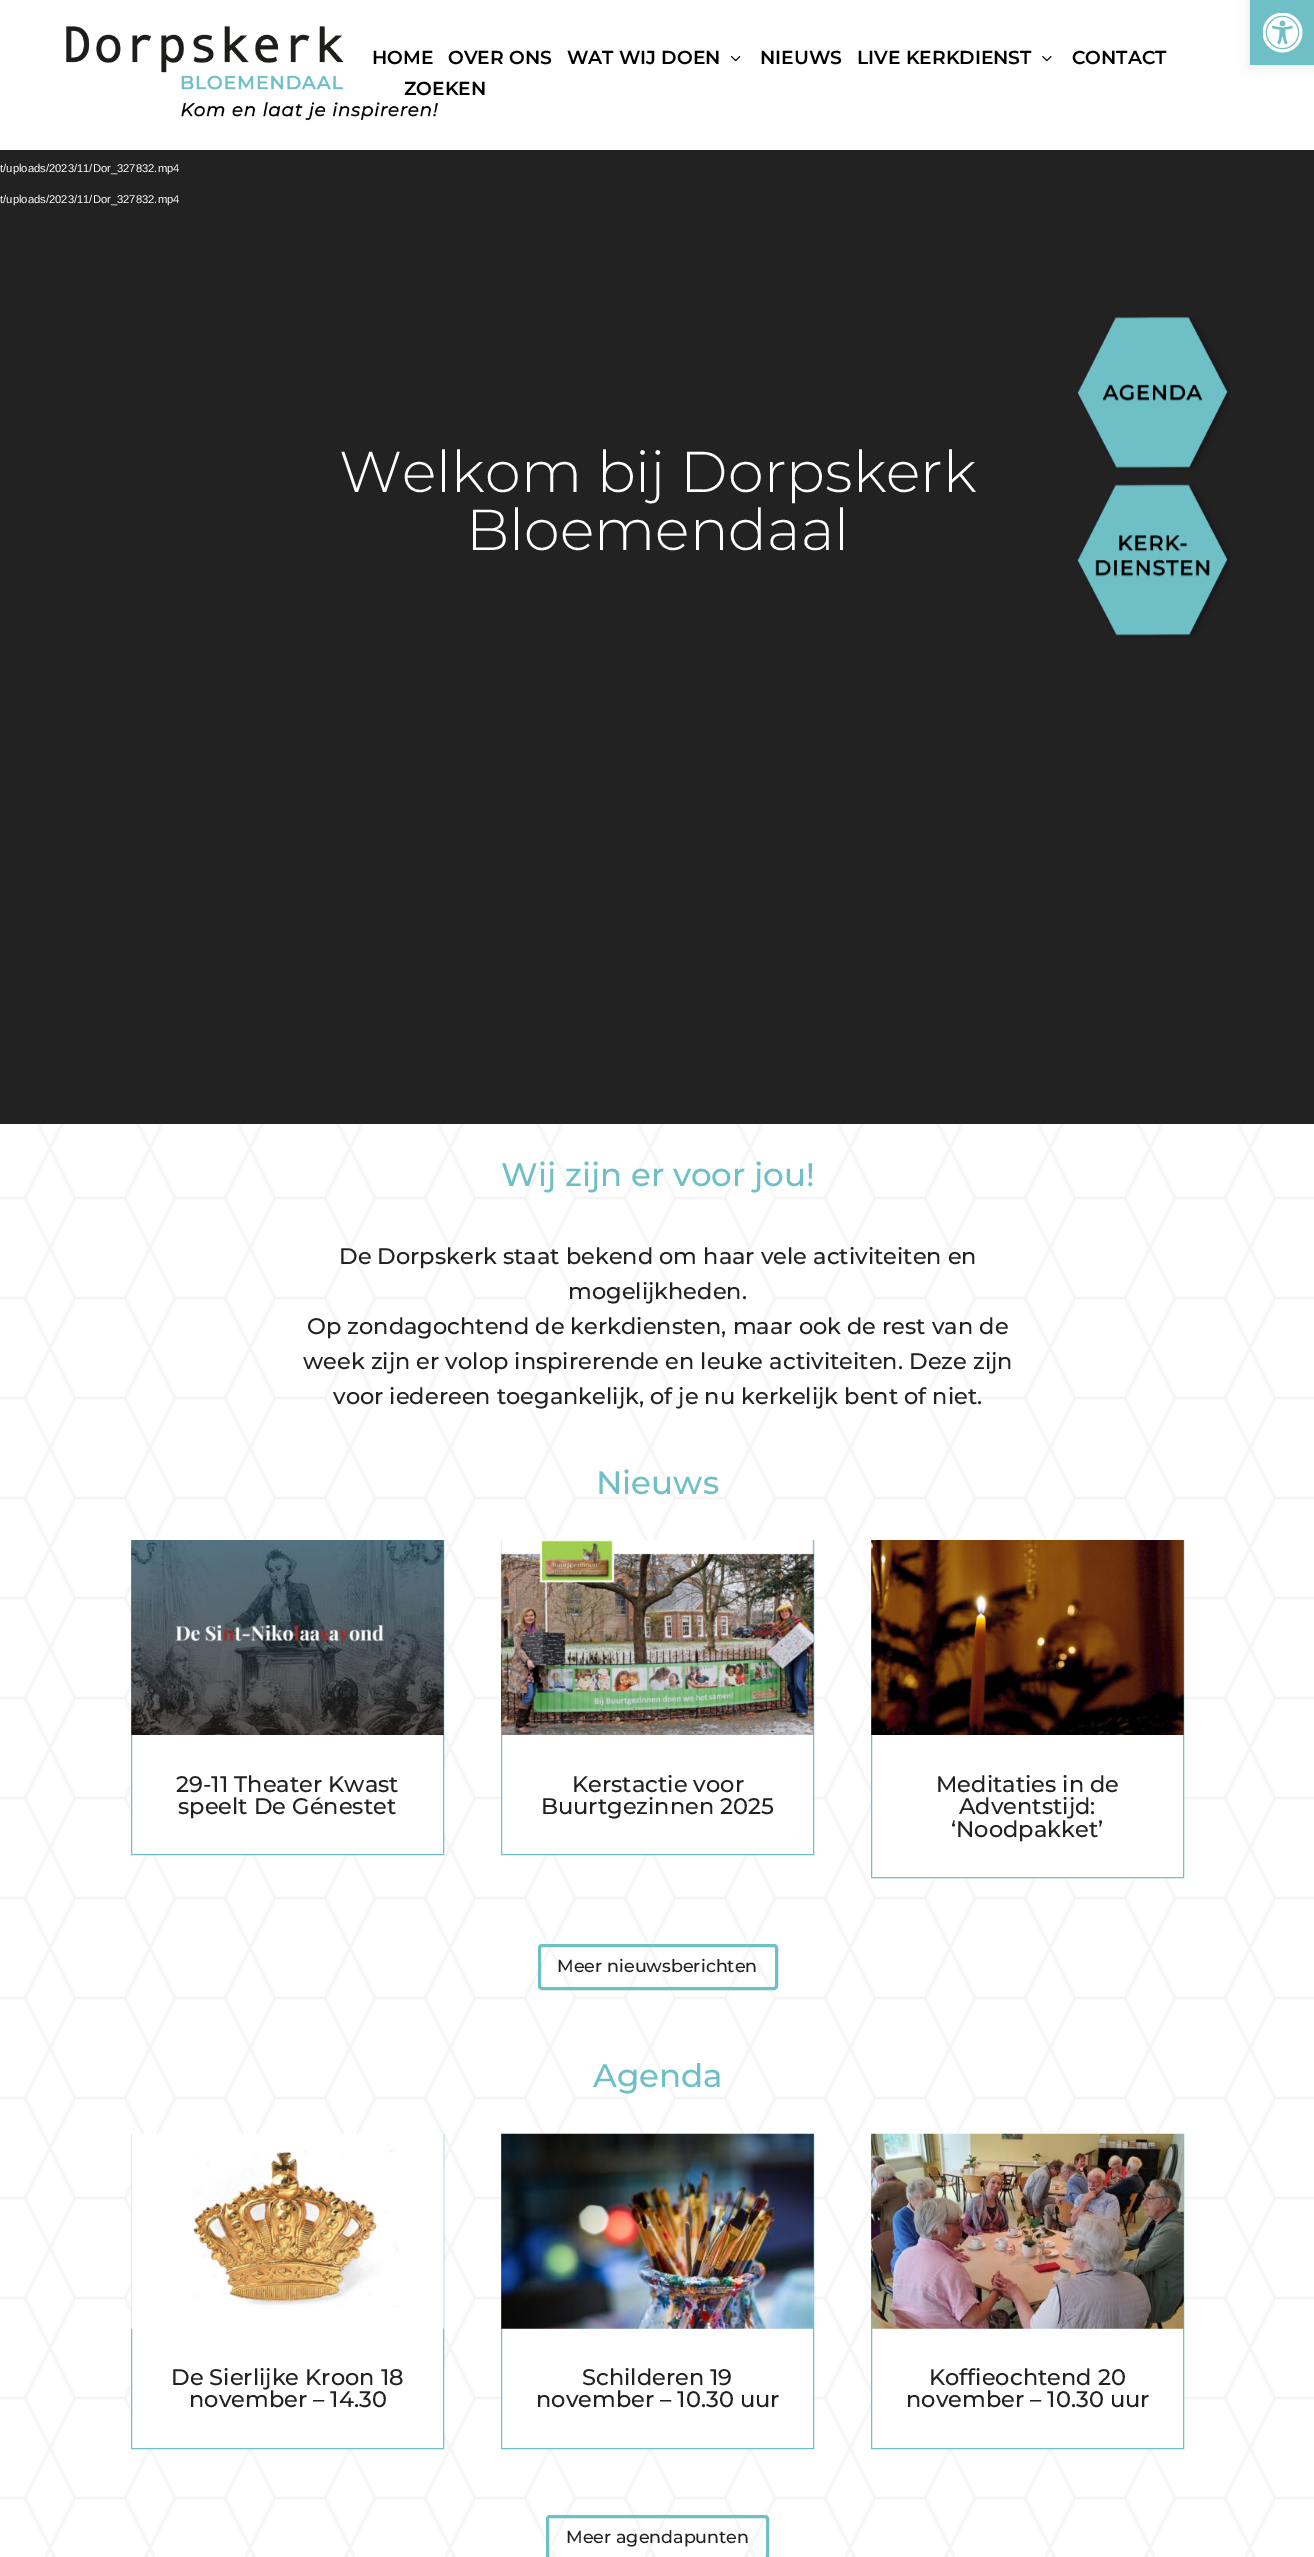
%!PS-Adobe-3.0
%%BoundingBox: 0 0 1314 2557
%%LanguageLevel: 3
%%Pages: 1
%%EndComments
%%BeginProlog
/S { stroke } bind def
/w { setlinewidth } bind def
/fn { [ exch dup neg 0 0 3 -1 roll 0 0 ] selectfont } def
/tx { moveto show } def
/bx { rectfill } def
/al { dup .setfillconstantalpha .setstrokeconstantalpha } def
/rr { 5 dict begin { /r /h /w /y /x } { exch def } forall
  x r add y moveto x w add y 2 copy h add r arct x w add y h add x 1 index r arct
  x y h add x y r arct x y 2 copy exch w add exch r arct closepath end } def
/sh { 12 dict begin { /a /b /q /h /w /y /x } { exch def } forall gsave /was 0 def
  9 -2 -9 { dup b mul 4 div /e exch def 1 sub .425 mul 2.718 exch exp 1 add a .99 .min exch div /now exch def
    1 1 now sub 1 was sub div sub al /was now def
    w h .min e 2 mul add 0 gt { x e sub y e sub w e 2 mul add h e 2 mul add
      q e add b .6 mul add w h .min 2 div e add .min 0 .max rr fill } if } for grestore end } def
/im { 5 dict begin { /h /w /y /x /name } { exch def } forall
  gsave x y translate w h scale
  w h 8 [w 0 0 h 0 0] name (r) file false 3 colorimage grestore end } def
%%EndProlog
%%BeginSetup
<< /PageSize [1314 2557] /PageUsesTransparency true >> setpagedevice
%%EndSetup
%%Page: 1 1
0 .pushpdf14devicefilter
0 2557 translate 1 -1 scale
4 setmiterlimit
1 setgray
0 0 1314 2557 bx
(image0.raw) 66 26 373 95 im
/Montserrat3-Thin 18.75 fn
0 setgray
(HOME) 372 64 tx
(OVER ONS) 448 64 tx
(WAT WIJ DOEN) 567 64 tx
(image1.raw) 731 56 10 6 im
(NIEUWS) 760 64 tx
(LIVE KERKDIENST) 857 64 tx
(image2.raw) 1042 56 10 6 im
(CONTACT) 1072 64 tx
(ZOEKEN) 404 95 tx
0.133 setgray
0 150 1314 974 bx
(image3.raw) 1077 317 153 153 im
(image4.raw) 1077 484 153 154 im
/LiberationSans-Regular 11.25 fn
1 setgray
(t/uploads/2023/11/Dor_327832.mp4) 0 172 tx
(t/uploads/2023/11/Dor_327832.mp4) 0 203 tx
/Montserrat-Thin 57.5 fn
(Welkom bij Dorpskerk) 339 492 tx
(Bloemendaal) 466 550 tx
(image5.raw) 0 1124 1314 1433 im
/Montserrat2-Thin 32.5 fn
0.435 0.749 0.776 setrgbcolor
(Wij zijn er voor jou!) 501 1186 tx
/Montserrat2-Thin 22.5 fn
0.129 setgray
(De Dorpskerk staat bekend om haar vele activiteiten en) 339 1264 tx
(mogelijkheden.) 568 1299 tx
(Op zondagochtend de kerkdiensten, maar ook de rest van de) 307 1334 tx
(week zijn er volop inspirerende en leuke activiteiten. Deze zijn) 303 1369 tx
(voor iedereen toegankelijk, of je nu kerkelijk bent of niet.) 333 1404 tx
/Montserrat2-Thin 32.5 fn
0.435 0.749 0.776 setrgbcolor
(Nieuws) 596 1494 tx
1 setgray
132 1735 311 119 bx
0.435 0.749 0.776 setrgbcolor
131.5 1540.5 312 314 rectstroke
(image6.raw) 131 1540 313 195 im
/Montserrat2-Thin 22.5 fn
0.129 setgray
(29-11 Theater Kwast) 176 1792 tx
(speelt De Génestet) 178 1814 tx
1 setgray
502 1735 311 119 bx
0.435 0.749 0.776 setrgbcolor
501.5 1540.5 312 314 rectstroke
(image7.raw) 501 1540 313 195 im
0.129 setgray
(Kerstactie voor) 572 1792 tx
(Buurtgezinnen 2025) 541 1814 tx
1 setgray
872 1735 311 142 bx
0.435 0.749 0.776 setrgbcolor
871.5 1540.5 312 337 rectstroke
(image8.raw) 871 1540 313 195 im
0.129 setgray
(Meditaties in de) 936 1792 tx
(Adventstijd:) 959 1814 tx
(‘Noodpakket’) 951 1837 tx
0.435 0.749 0.776 setrgbcolor
3 w
539.5 1945.5 237 43 2.5 rr S
/Montserrat2-Thin 17.5 fn
0.129 setgray
(Meer nieuwsberichten) 557 1972 tx
/Montserrat2-Thin 32.5 fn
0.435 0.749 0.776 setrgbcolor
(Agenda) 593 2087 tx
1 setgray
132 2328 311 120 bx
0.435 0.749 0.776 setrgbcolor
1 w
131.5 2134.5 312 314 rectstroke
(image9.raw) 131 2134 313 195 im
/Montserrat2-Thin 22.5 fn
0.129 setgray
(De Sierlijke Kroon 18) 171 2385 tx
(november – 14.30) 189 2407 tx
1 setgray
502 2328 311 120 bx
0.435 0.749 0.776 setrgbcolor
501.5 2134.5 312 314 rectstroke
(image10.raw) 501 2133 313 196 im
0.129 setgray
(Schilderen 19) 582 2385 tx
(november – 10.30 uur) 536 2407 tx
1 setgray
872 2328 311 120 bx
0.435 0.749 0.776 setrgbcolor
871.5 2134.5 312 314 rectstroke
(image11.raw) 871 2133 313 196 im
0.129 setgray
(Koffieochtend 20) 929 2385 tx
(november – 10.30 uur) 906 2407 tx
0.435 0.749 0.776 setrgbcolor
3 w
547.5 2516.5 220 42 2.5 rr S
/Montserrat2-Thin 17.5 fn
0.129 setgray
(Meer agendapunten) 566 2543 tx
0 setgray
1250 0 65 65 0 6 0.1 sh
0.435 0.749 0.776 setrgbcolor
1250 0 64 65 bx
(image12.raw) 1263 13 40 40 im
.poppdf14devicefilter showpage
%%EOF
